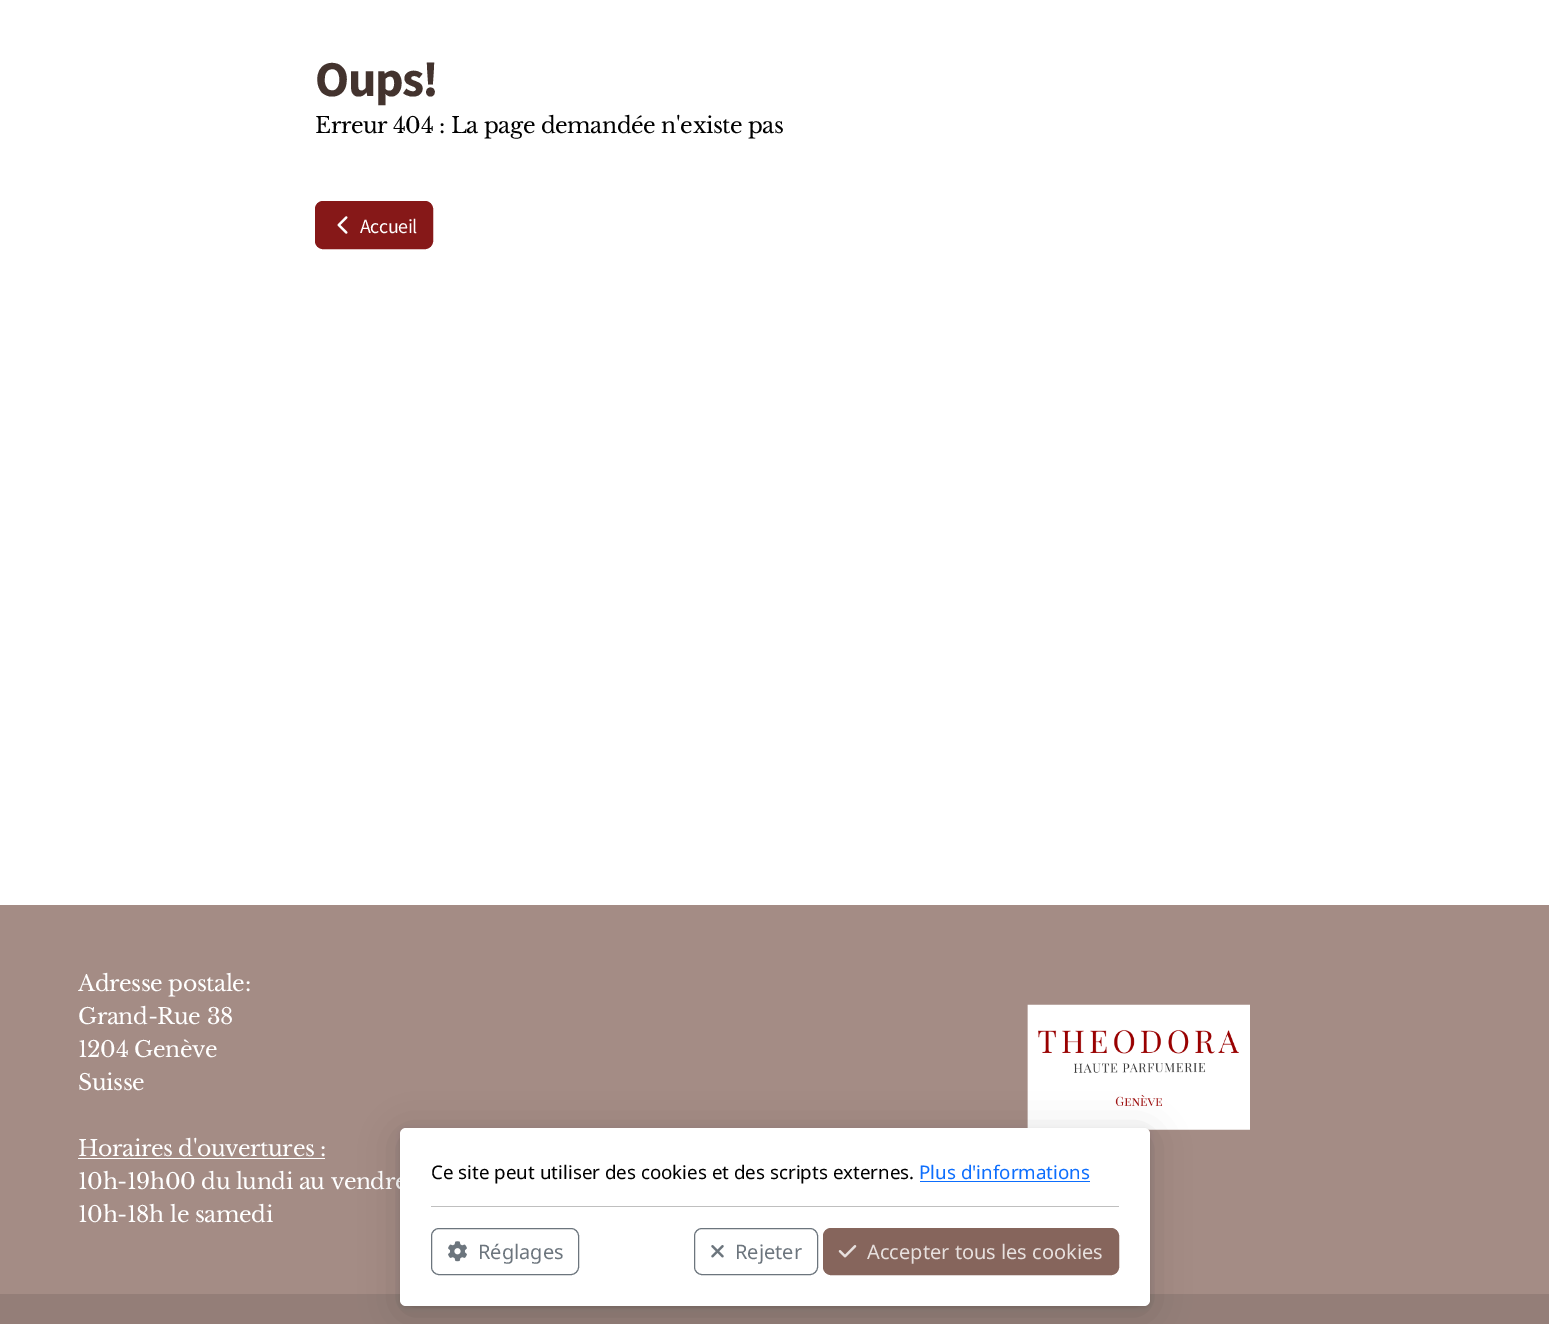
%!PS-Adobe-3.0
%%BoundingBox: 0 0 1549 1324
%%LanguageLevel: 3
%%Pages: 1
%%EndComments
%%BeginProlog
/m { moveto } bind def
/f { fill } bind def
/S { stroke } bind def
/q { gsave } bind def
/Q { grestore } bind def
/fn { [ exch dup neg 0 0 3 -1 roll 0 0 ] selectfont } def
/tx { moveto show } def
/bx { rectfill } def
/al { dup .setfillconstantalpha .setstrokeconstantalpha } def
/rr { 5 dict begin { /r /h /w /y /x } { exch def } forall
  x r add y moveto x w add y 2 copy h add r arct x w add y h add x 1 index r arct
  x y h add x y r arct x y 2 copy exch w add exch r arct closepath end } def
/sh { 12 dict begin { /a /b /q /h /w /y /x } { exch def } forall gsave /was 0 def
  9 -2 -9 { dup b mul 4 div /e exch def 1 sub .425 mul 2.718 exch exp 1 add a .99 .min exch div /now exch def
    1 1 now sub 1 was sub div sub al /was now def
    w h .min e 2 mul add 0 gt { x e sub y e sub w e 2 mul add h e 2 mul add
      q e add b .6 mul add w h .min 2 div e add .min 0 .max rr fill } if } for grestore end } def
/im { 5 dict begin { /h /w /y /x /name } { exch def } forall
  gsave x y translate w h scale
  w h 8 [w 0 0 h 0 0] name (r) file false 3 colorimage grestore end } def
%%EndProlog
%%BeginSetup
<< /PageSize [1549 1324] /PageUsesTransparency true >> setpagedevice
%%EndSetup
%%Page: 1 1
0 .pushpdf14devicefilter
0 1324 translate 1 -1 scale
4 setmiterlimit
1 setgray
0 0 1549 1324 bx
/SourceSansPro-Bold 50 fn
0.263 0.2 0.18 setrgbcolor
315 96 m -1.5 0 (Oups!) ashow
/LibreBaskerville-Regular 22 fn
0 setgray
315 133 m -0.45 0 (Erreur 404 : La page demandée n'existe pas) ashow
0.525 0.094 0.094 setrgbcolor
315.5 201.5 117 47 7.5 rr q f Q
S
(image0.raw) 337 216 11 18 im
/SourceSansPro-Regular 20 fn
1 setgray
360 233 m -0.45 0 (Accueil) ashow
0.643 0.549 0.522 setrgbcolor
0 905 1549 389 bx
/LibreBaskerville-Regular 22 fn
1 setgray
78 991 m -0.45 0 (Adresse postale:) ashow
78 1024 m -0.45 0 (Grand-Rue 38) ashow
78 1057 m -0.45 0 (1204 Genève) ashow
78 1090 m -0.45 0 (Suisse) ashow
78 1156 m -0.45 0 (Horaires d'ouvertures :) ashow
78 1158 247 1 bx
78 1189 m -0.45 0 (10h-19h00 du lundi au vendre) ashow
78 1222 m -0.45 0 (10h-18h le samedi) ashow
(image1.raw) 1027 1004 223 126 im
0.58 0.494 0.471 setrgbcolor
0 1294 1549 30 bx
0 setgray
400 1134 750 179 6 19 0.16 sh
400 1129 750 179 6 2 0.1 sh
1 setgray
400 1128 750 178 6 rr f
/NotoSans-Regular 18.75 fn
0 setgray
(Ce site peut utiliser des cookies et des scripts externes.) 431 1179 tx
0.051 0.431 0.992 setrgbcolor
(Plus d'informations) 919 1179 tx
920 1181 170 1 bx
0.749 setgray
431 1206 688 1 bx
0.424 0.459 0.49 setrgbcolor
431.5 1228.5 147 46 7.5 rr S
(image2.raw) 448 1241 19 21 im
/NotoSans-Regular 20 fn
(Réglages) 478 1259 tx
694.5 1228.5 123 46 7.5 rr S
(image3.raw) 711 1245 13 13 im
(Rejeter) 735 1259 tx
0.525 0.396 0.361 setrgbcolor
823.5 1228.5 295 46 7.5 rr q f Q
S
(image4.raw) 838 1245 19 13 im
0.906 0.878 0.871 setrgbcolor
(Accepter tous les cookies) 867 1259 tx
.poppdf14devicefilter showpage
%%EOF
